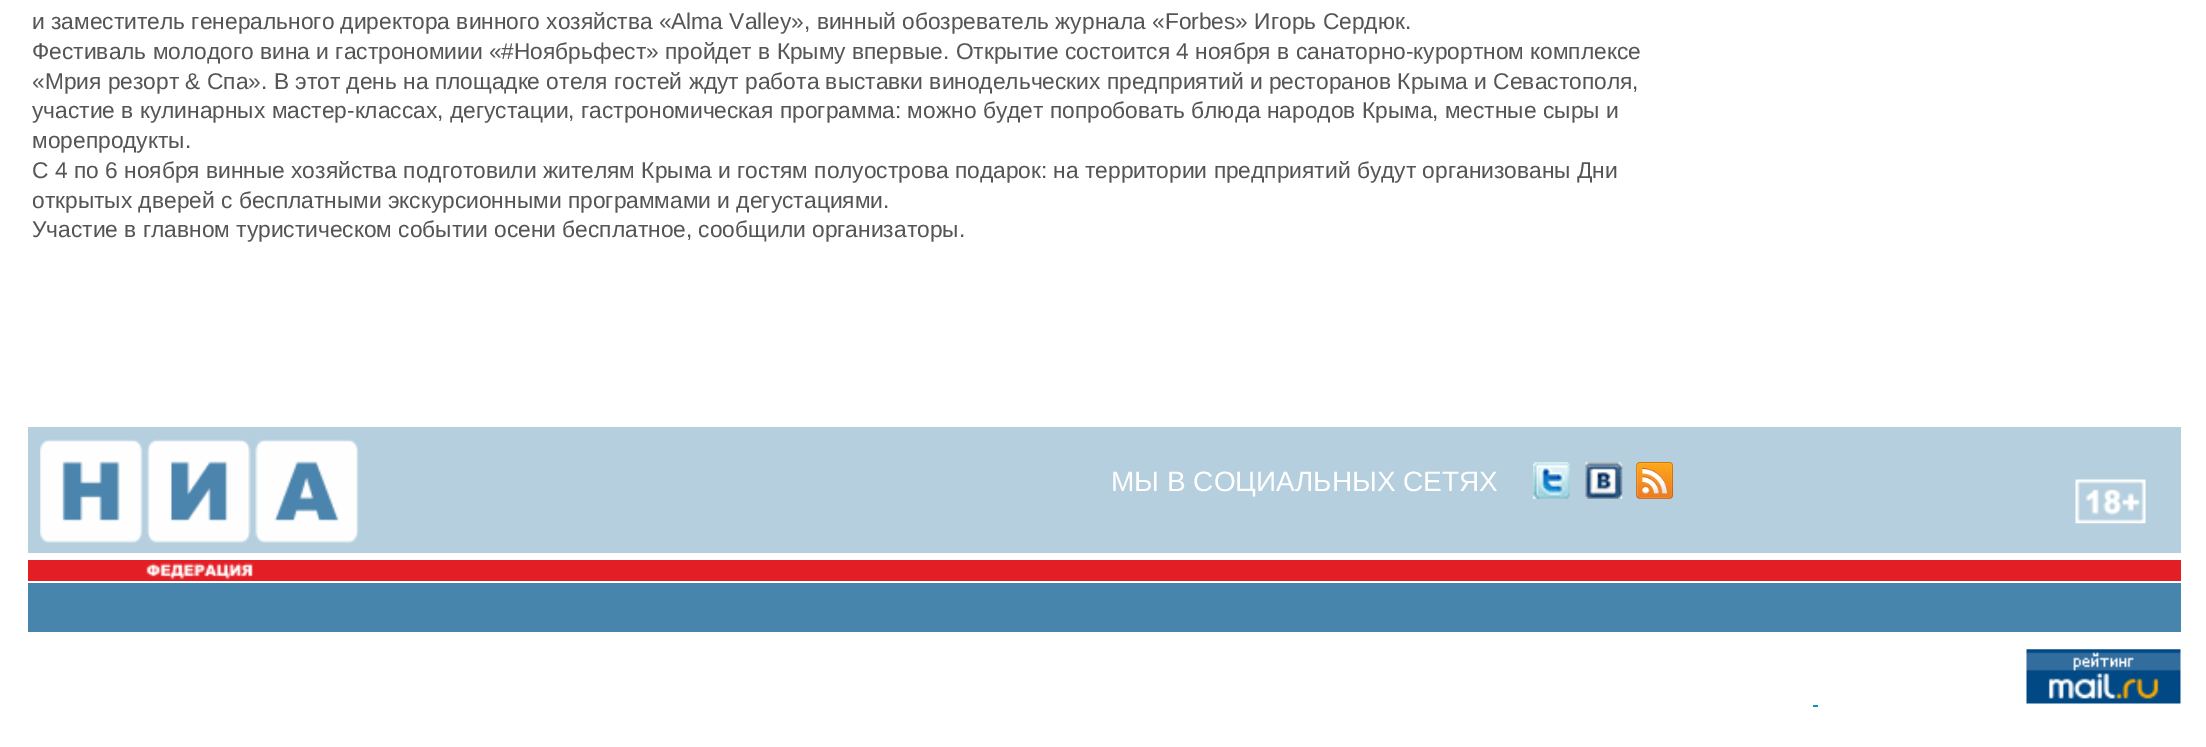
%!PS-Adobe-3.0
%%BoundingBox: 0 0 2206 747
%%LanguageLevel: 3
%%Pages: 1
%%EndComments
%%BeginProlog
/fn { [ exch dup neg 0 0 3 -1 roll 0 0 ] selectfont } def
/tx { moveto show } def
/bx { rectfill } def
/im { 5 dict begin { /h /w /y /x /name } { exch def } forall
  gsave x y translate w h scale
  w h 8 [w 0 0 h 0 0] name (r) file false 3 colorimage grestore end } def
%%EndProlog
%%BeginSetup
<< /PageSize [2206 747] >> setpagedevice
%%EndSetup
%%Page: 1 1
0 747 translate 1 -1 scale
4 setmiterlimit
1 setgray
0 0 2206 747 bx
/LiberationSans-Regular 22.75 fn
0.333 setgray
(и заместитель генерального директора винного хозяйства «Alma Valley», винный обозреватель журнала «Forbes» Игорь Сердюк.) 32 29 tx
(Фестиваль молодого вина и гастрономиии «#Ноябрьфест» пройдет в Крыму впервые. Открытие состоится 4 ноября в санаторно-курортном комплексе) 32 59 tx
(«Мрия резорт & Спа». В этот день на площадке отеля гостей ждут работа выставки винодельческих предприятий и ресторанов Крыма и Севастополя,) 32 89 tx
(участие в кулинарных мастер-классах, дегустации, гастрономическая программа: можно будет попробовать блюда народов Крыма, местные сыры и) 32 118 tx
(морепродукты.) 32 148 tx
(С 4 по 6 ноября винные хозяйства подготовили жителям Крыма и гостям полуострова подарок: на территории предприятий будут организованы Дни) 32 178 tx
(открытых дверей с бесплатными экскурсионными программами и дегустациями.) 32 208 tx
(Участие в главном туристическом событии осени бесплатное, сообщили организаторы.) 32 237 tx
0.714 0.812 0.871 setrgbcolor
28 427 2153 126 bx
0.89 0.118 0.141 setrgbcolor
28 560 2153 21 bx
(image0.raw) 40 439 319 141 im
/LiberationSans-Regular 28 fn
1 setgray
(МЫ В СОЦИАЛЬНЫХ СЕТЯХ) 1111 491 tx
(image1.raw) 1533 462 37 37 im
(image2.raw) 1585 462 38 37 im
(image3.raw) 1636 462 37 37 im
(image4.raw) 2075 479 71 45 im
0.282 0.522 0.675 setrgbcolor
28 583 2153 49 bx
(image5.raw) 2026 649 155 55 im
0.012 0.588 0.718 setrgbcolor
1813 705 5 2 bx
showpage
%%EOF
